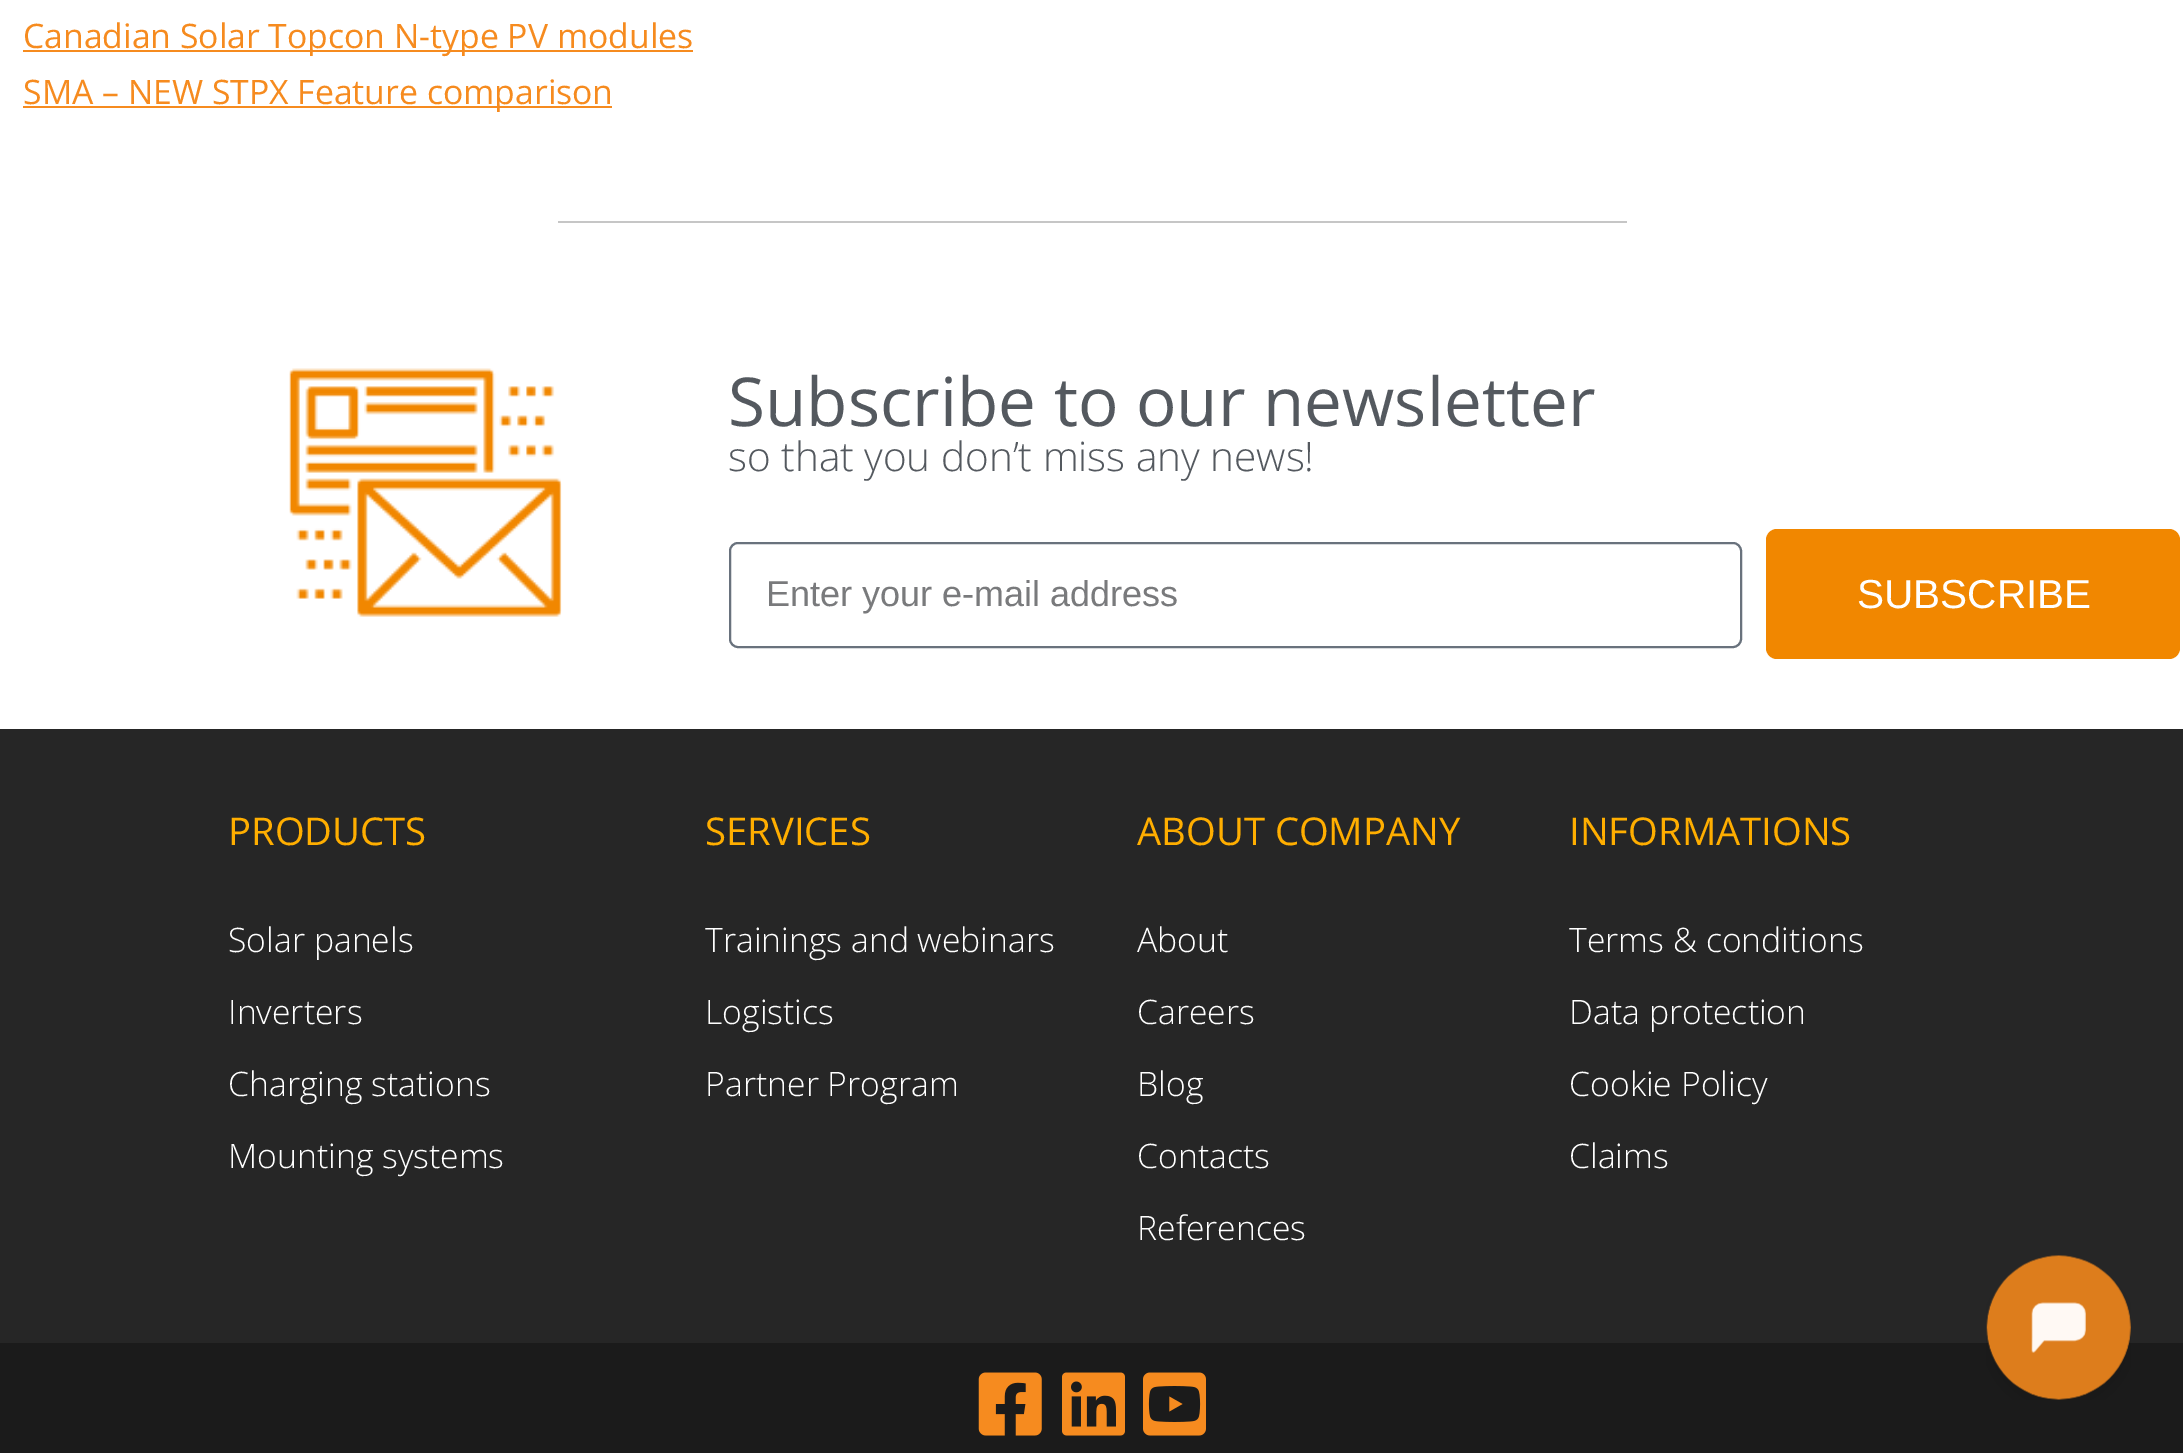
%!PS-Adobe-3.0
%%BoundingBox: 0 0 2183 1453
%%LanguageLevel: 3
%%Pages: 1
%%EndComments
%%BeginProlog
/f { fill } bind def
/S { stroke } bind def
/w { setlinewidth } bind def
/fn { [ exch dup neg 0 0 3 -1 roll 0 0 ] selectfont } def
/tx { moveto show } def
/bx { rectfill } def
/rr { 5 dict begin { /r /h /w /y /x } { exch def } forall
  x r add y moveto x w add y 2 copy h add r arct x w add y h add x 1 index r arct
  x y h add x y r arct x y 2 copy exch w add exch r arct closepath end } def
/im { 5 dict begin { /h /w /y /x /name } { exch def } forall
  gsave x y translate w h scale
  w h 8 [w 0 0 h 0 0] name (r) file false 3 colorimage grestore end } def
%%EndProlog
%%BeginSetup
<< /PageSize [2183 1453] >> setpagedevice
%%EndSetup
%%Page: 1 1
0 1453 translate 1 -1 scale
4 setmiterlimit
1 setgray
0 0 2183 1453 bx
0.965 0.545 0.122 setrgbcolor
23 50 670 2 bx
/OpenSans-Regular 33.75 fn
(Canadian Solar Topcon N-type PV modules) 23 48 tx
23 106 589 2 bx
(SMA – NEW STPX Feature comparison) 23 104 tx
0.776 setgray
558 221 1069 2 bx
(image0.raw) 289 368 273 249 im
/OpenSans-Regular 67.5 fn
0.329 0.349 0.373 setrgbcolor
(Subscribe to our newsletter) 728 426 tx
/OpenSans-Light 40.5 fn
(so that you don’t miss any news!) 728 471 tx
0.412 0.447 0.49 setrgbcolor
2 w
730 543 1011 104 8 rr S
/LiberationSans-Regular 36 fn
0.475 0.478 0.486 setrgbcolor
(Enter your e-mail address) 766 606 tx
0.945 0.529 0 setrgbcolor
1766 529 414 130 11 rr f
/LiberationSans-Regular 40.5 fn
1 setgray
(SUBSCRIBE) 1857 608 tx
0.149 setgray
0 729 2183 614 bx
/OpenSans-Regular 38.25 fn
1 0.682 0 setrgbcolor
(PRODUCTS) 228 845 tx
/OpenSans-Light 33.75 fn
1 setgray
(Solar panels) 228 952 tx
(Inverters) 228 1024 tx
(Charging stations) 228 1096 tx
(Mounting systems) 228 1168 tx
/OpenSans-Regular 38.25 fn
1 0.682 0 setrgbcolor
(SERVICES) 705 845 tx
/OpenSans-Light 33.75 fn
1 setgray
(Trainings and webinars) 705 952 tx
(Logistics) 705 1024 tx
(Partner Program) 705 1096 tx
/OpenSans-Regular 38.25 fn
1 0.682 0 setrgbcolor
(ABOUT COMPANY) 1137 845 tx
/OpenSans-Light 33.75 fn
1 setgray
(About) 1137 952 tx
(Careers) 1137 1024 tx
(Blog) 1137 1096 tx
(Contacts) 1137 1168 tx
(References) 1137 1240 tx
/OpenSans-Regular 38.25 fn
1 0.682 0 setrgbcolor
(INFORMATIONS) 1569 845 tx
/OpenSans-Light 33.75 fn
1 setgray
(Terms & conditions) 1569 952 tx
(Data protection) 1569 1024 tx
(Cookie Policy) 1569 1096 tx
(Claims) 1569 1168 tx
0.106 setgray
0 1343 2183 110 bx
(image1.raw) 978 1372 64 64 im
(image2.raw) 1062 1372 63 64 im
(image3.raw) 1143 1372 63 64 im
(image4.raw) 1986 1255 145 145 im
showpage
%%EOF
